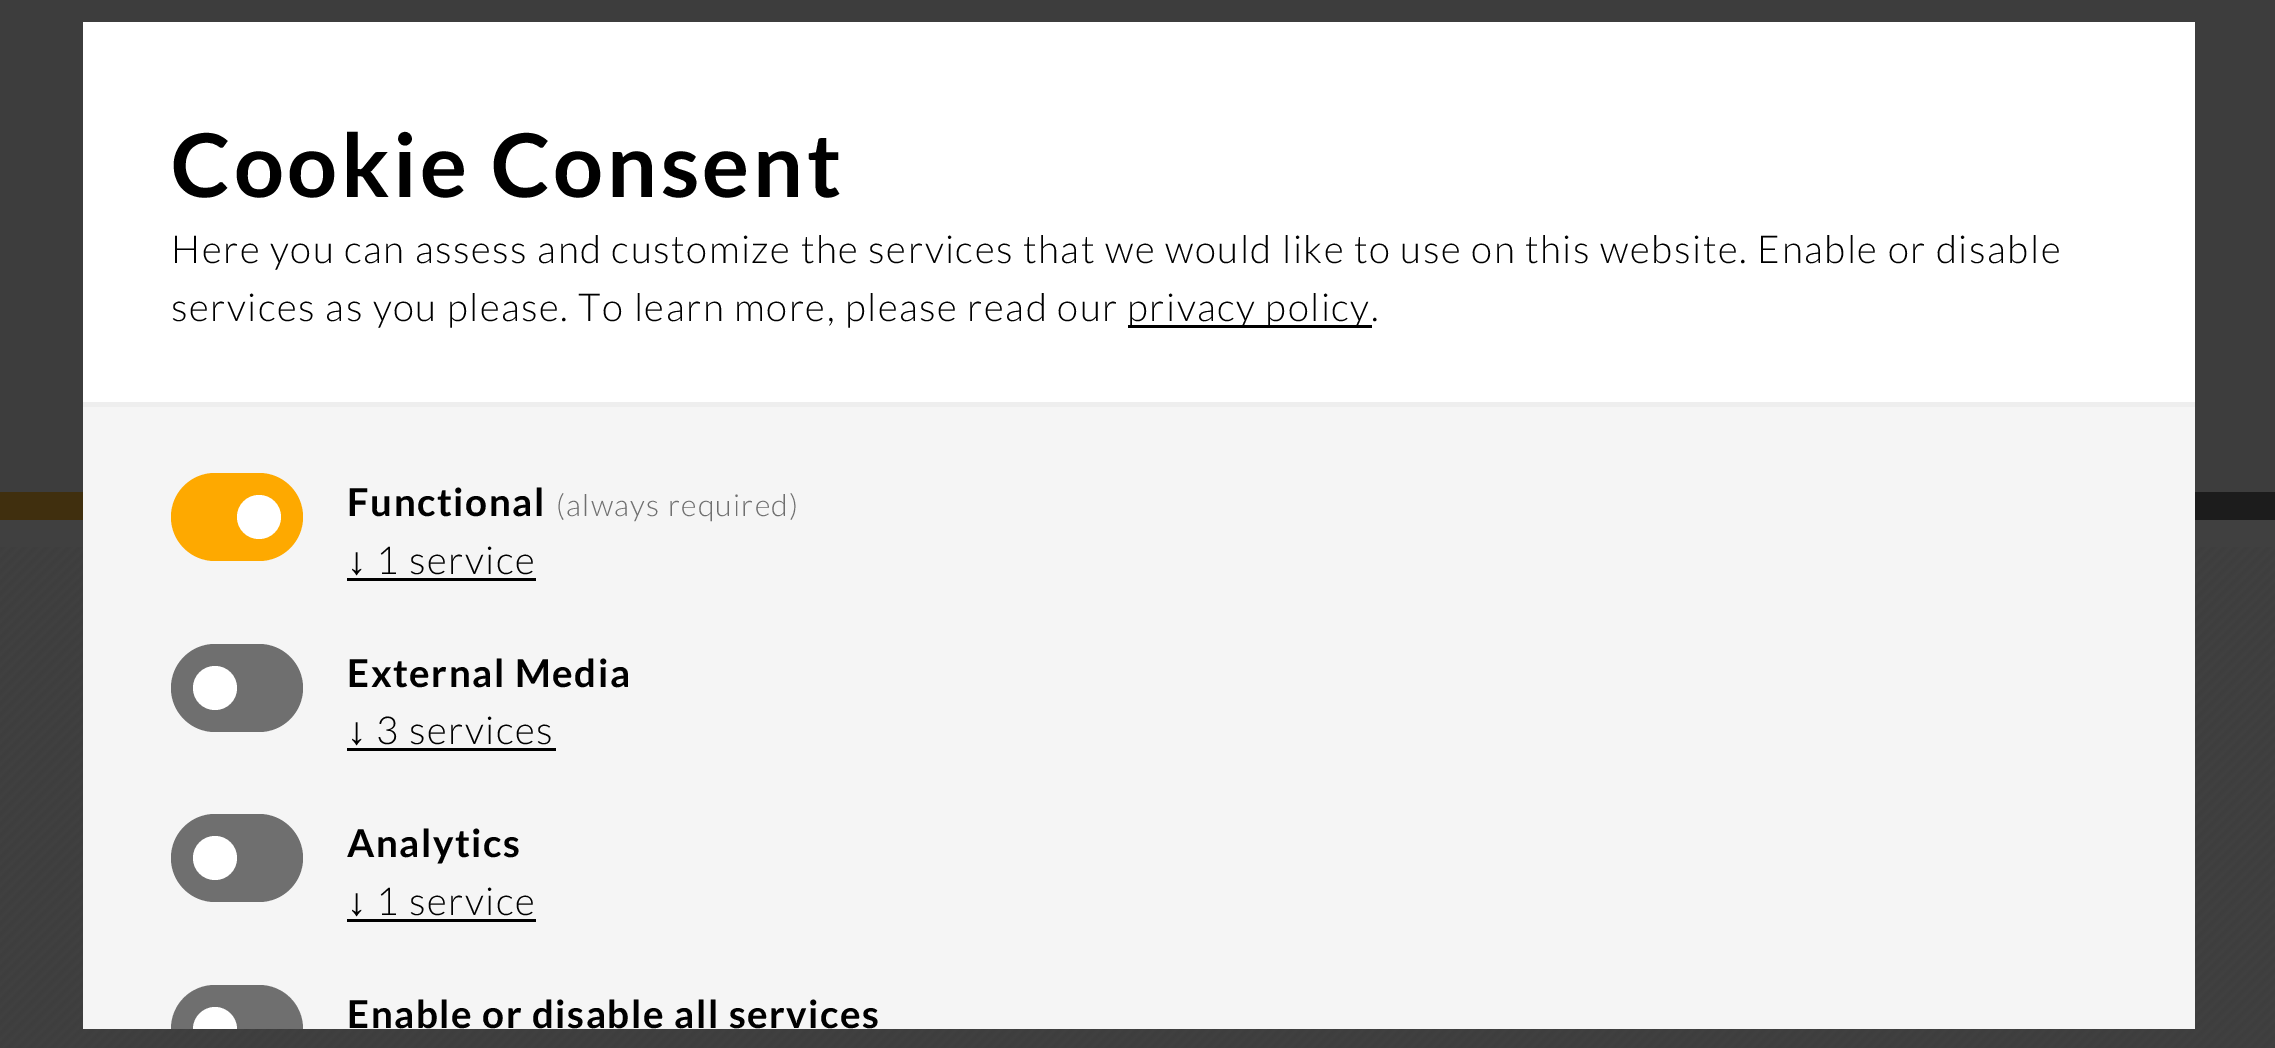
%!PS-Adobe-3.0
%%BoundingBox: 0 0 2275 1048
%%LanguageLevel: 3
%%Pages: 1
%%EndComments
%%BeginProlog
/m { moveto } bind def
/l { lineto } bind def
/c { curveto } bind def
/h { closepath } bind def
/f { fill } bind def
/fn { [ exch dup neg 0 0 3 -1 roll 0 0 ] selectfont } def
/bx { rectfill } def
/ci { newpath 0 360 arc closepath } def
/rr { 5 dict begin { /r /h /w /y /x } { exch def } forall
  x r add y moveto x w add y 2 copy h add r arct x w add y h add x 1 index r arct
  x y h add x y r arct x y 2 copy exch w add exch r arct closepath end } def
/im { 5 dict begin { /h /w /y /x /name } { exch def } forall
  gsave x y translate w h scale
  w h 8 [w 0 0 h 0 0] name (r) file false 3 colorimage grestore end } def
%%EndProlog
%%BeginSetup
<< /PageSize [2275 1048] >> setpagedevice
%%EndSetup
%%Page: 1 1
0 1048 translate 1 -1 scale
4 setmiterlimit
0.251 setgray
0 0 2275 1048 bx
0.239 setgray
0 0 2275 492 bx
(image0.raw) 0 547 2275 501 im
0.251 0.184 0.055 setrgbcolor
0 492 83 28 bx
0.11 setgray
2195 492 80 28 bx
1 setgray
83 22 2112 380 bx
0.933 setgray
83 402 2112 5 bx
/Lato-Bold 88 fn
0 setgray
171 197 m 3.5 0 (Cookie Consent) ashow
/Lato-Light 38.5 fn
171 263 m 1.54 0 (Here you can assess and customize the services that we would like to use on this website. Enable or disable) ashow
171 321 m 1.54 0 (services as you please. To learn more, please read our) ashow
1128 325 244 3 bx
1127 321 m 1.54 0 (privacy policy) ashow
1371 321 m 1.54 0 (.) ashow
0.961 setgray
83 407 2112 622 bx
0.996 0.663 0 setrgbcolor
171 473 132 88 44 rr f
1 setgray
259 517 22 ci f
/Lato-Bold 38.5 fn
0 setgray
347 516 m 1.54 0 (Functional) ashow
/Lato-Light 30.25 fn
0.435 setgray
556 516 m 1.25 0 (\(always required\)) ashow
/LiberationSans-Regular 38.5 fn
0 setgray
347 574 m 1.54 0 (↓) ashow
347 578 189 3 bx
/Lato-Light 38.5 fn
376 574 m 1.54 0 (1 service) ashow
0.435 setgray
171 644 132 88 44 rr f
1 setgray
215 688 22 ci f
/Lato-Bold 38.5 fn
0 setgray
347 687 m 1.54 0 (External Media) ashow
/LiberationSans-Regular 38.5 fn
347 744 m 1.54 0 (↓) ashow
347 748 209 3 bx
/Lato-Light 38.5 fn
376 744 m 1.54 0 (3 services) ashow
0.435 setgray
171 814 132 88 44 rr f
1 setgray
215 858 22 ci f
/Lato-Bold 38.5 fn
0 setgray
347 857 m 1.54 0 (Analytics) ashow
/LiberationSans-Regular 38.5 fn
347 915 m 1.54 0 (↓) ashow
347 919 189 3 bx
/Lato-Light 38.5 fn
376 915 m 1.54 0 (1 service) ashow
0.435 setgray
215 985 m 259 985 l 283.5 985 303 1004.5 303 1029 c 171 1029 l 171 1004.5 190.5 985 215 985 c h f
1 setgray
215 1007 m 227 1007 237 1017 237 1029 c 193 1029 l 193 1017 203 1007 215 1007 c h f
/Lato-Bold 38.5 fn
0 setgray
347 1028 m 1.54 0 (Enable or disable all services) ashow
showpage
%%EOF
